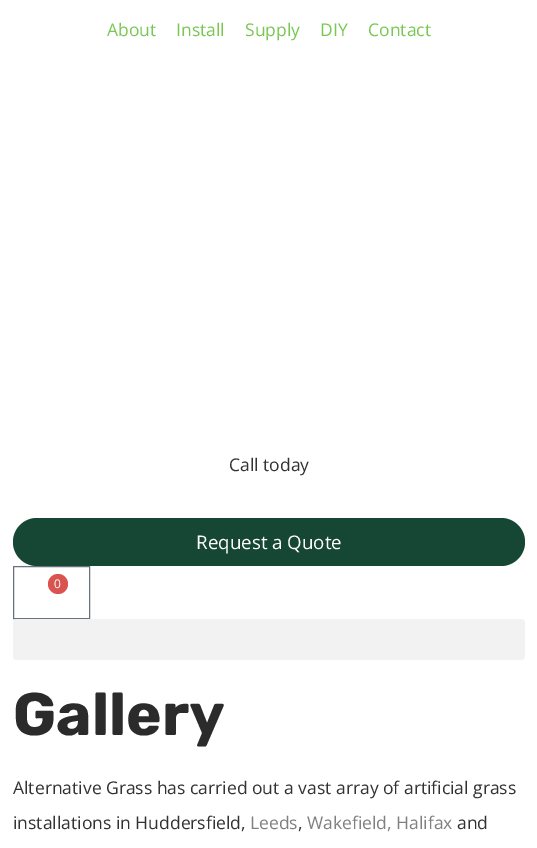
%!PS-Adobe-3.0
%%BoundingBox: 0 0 537 848
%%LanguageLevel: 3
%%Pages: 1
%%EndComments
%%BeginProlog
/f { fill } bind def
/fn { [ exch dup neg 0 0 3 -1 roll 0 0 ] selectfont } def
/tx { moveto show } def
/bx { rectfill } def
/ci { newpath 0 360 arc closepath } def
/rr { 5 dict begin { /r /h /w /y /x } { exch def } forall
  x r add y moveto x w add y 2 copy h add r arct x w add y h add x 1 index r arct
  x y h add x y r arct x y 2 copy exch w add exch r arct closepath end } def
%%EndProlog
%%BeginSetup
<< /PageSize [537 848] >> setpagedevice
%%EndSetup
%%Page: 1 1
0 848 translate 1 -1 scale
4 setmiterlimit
1 setgray
0 0 537 848 bx
/OpenSans-Regular 17.5 fn
0.475 0.78 0.325 setrgbcolor
(About) 107 36 tx
(Install) 176 36 tx
(Supply) 245 36 tx
(DIY) 320 36 tx
(Contact) 368 36 tx
0.196 setgray
(Call today) 229 471 tx
0.086 0.278 0.204 setrgbcolor
13 518 512 48 24 rr f
/OpenSans-Regular 18.75 fn
1 setgray
(Request a Quote) 196 549 tx
0.412 0.447 0.49 setrgbcolor
13.5 566.5 76 52 rectstroke
0.851 0.325 0.31 setrgbcolor
58 584 10 ci f
/OpenSans-Regular 12 fn
1 setgray
(0) 54 588 tx
0.949 setgray
13 619 512 41 4 rr f
/Rubik-Bold 60 fn
0.169 setgray
(Gallery) 13 735 tx
/OpenSans-Regular 17.5 fn
0.196 setgray
(Alternative Grass has carried out a vast array of artificial grass) 13 794 tx
(installations in Huddersfield,) 13 829 tx
0.502 setgray
(Leeds) 250 829 tx
0.196 setgray
(,) 298 829 tx
0.502 setgray
(Wakefield, Halifax) 307 829 tx
0.196 setgray
(and) 457 829 tx
showpage
%%EOF
